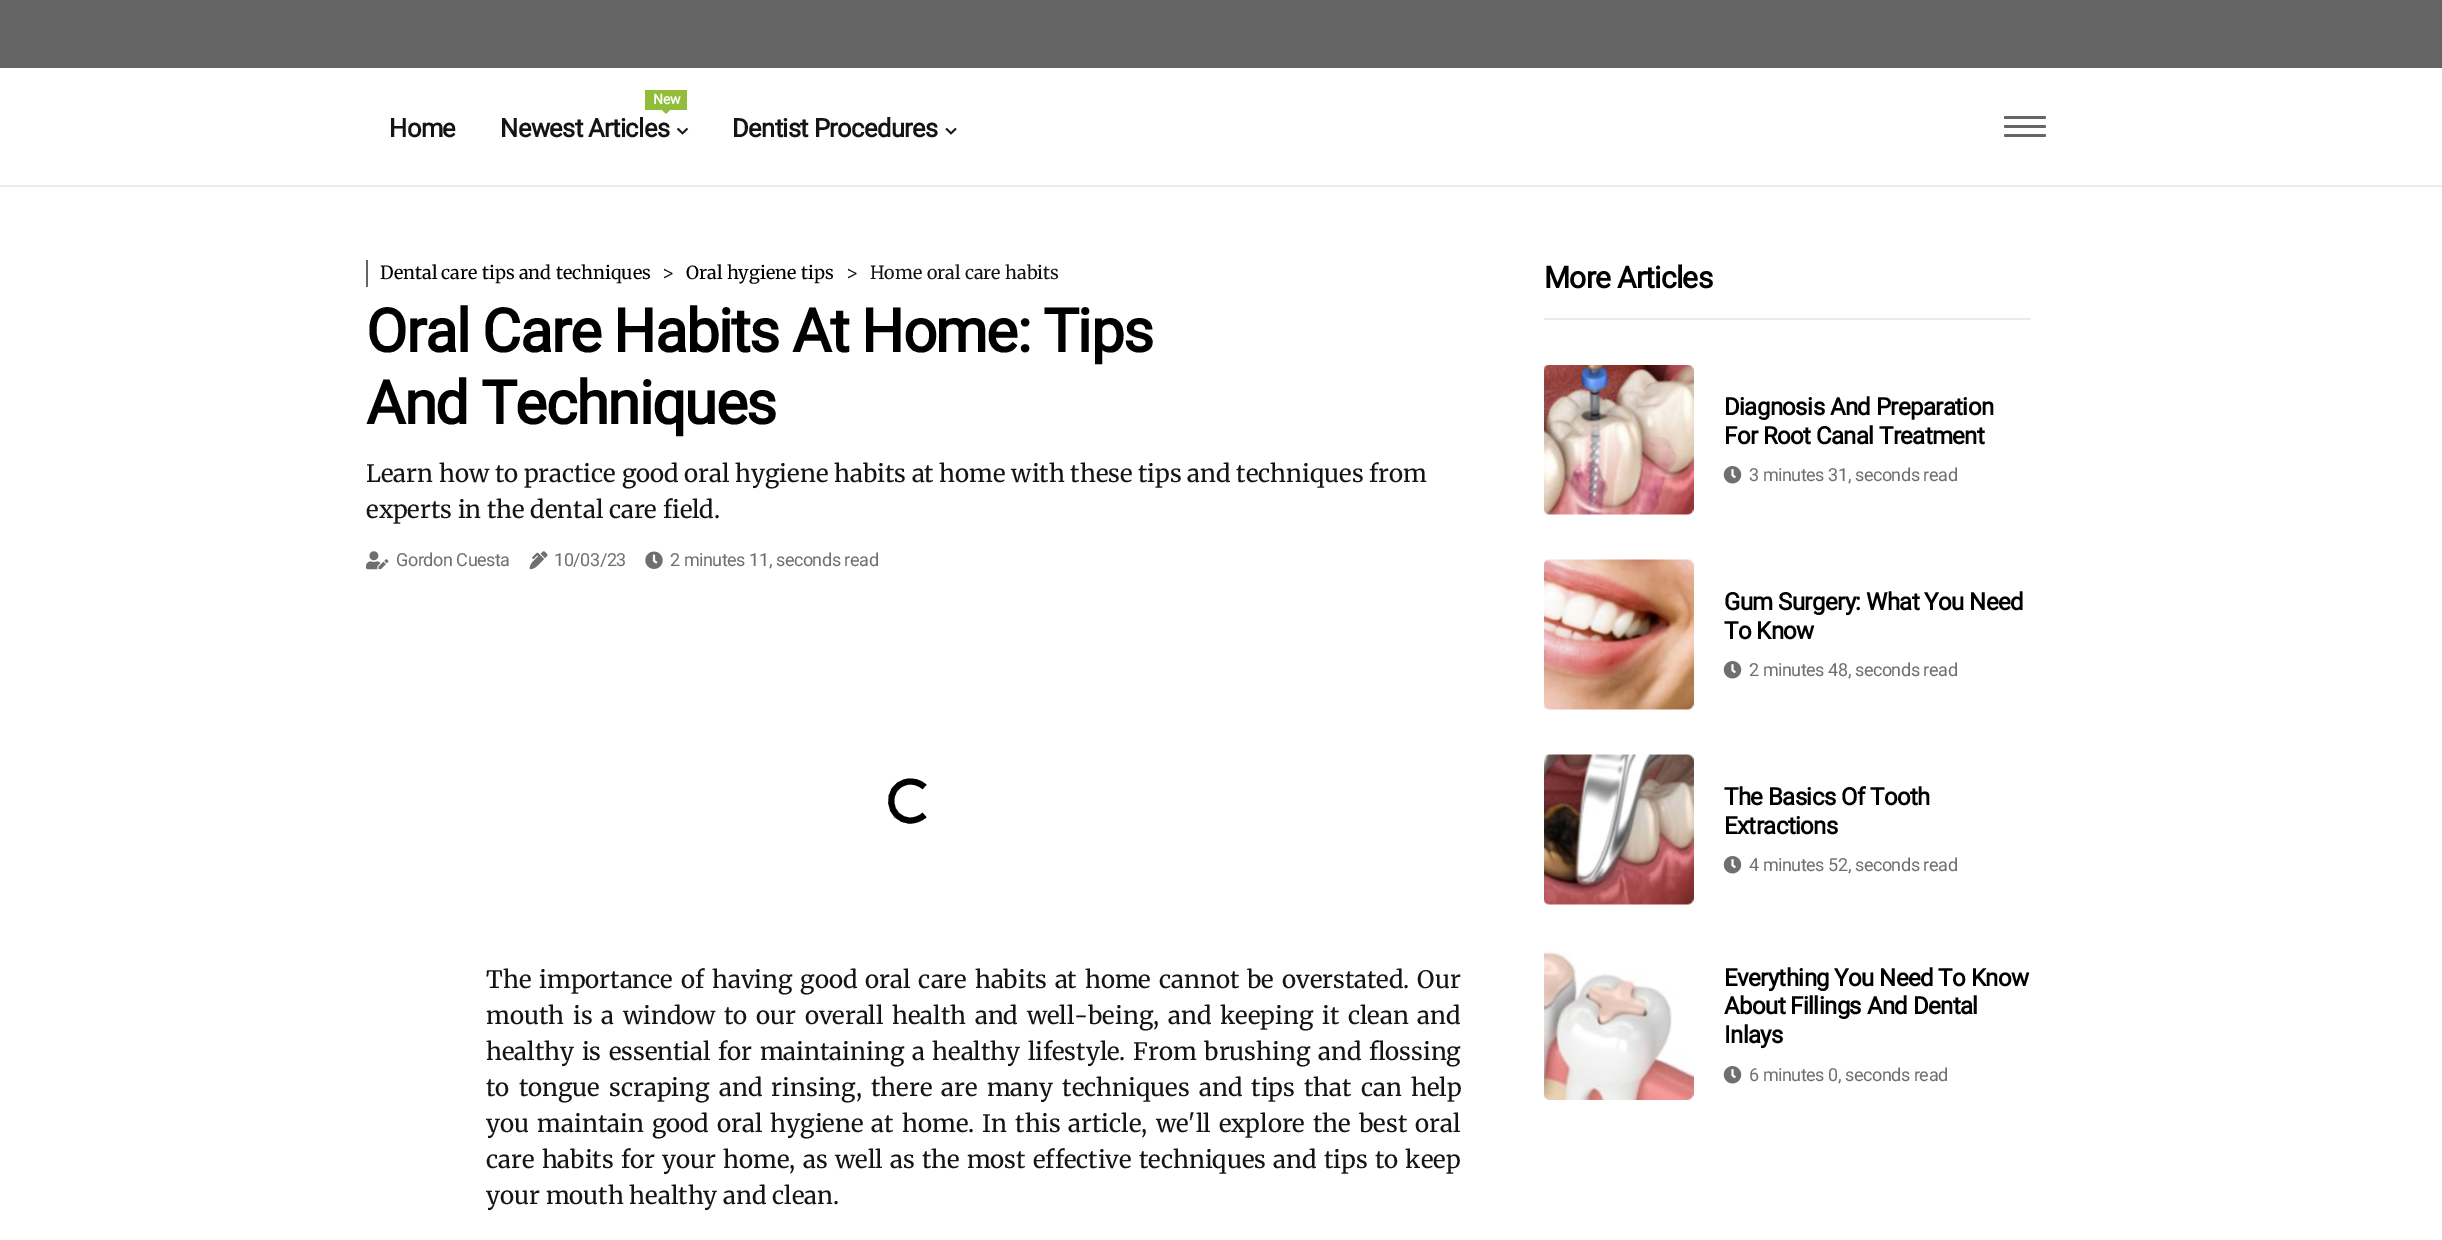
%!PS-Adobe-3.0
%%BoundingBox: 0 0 2442 1240
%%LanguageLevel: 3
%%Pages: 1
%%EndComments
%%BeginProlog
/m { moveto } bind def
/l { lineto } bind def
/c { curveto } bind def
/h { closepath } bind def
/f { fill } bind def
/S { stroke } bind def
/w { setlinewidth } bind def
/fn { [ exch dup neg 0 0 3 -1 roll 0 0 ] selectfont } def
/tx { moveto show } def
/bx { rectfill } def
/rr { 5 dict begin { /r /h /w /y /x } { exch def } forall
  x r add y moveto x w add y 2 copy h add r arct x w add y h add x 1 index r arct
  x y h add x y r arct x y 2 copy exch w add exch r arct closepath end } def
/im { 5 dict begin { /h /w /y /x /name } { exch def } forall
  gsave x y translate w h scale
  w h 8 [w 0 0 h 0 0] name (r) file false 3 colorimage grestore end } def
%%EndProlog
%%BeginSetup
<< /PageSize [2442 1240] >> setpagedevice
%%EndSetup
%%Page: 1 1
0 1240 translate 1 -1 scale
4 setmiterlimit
1 setgray
0 0 2442 1240 bx
0.396 setgray
0 0 2442 68 bx
0.922 setgray
0 185 2442 2 bx
/Roboto-Bold 25.5 fn
0.071 0.078 0.086 setrgbcolor
389 137 m -0.6 0 (Home) ashow
0.569 0.741 0.227 setrgbcolor
645 90 42 20 bx
/Roboto-Bold 14 fn
1 setgray
(New) 653 104 tx
0.569 0.741 0.227 setrgbcolor
661.5 109.5 m 670.5 109.5 l 666 114 l h f
/Roboto-Bold 25.5 fn
0.071 0.078 0.086 setrgbcolor
500 137 m -0.6 0 (Newest Articles) ashow
(image0.raw) 676 127 13 8 im
732 137 m -0.6 0 (Dentist Procedures) ashow
(image1.raw) 945 127 12 8 im
0.396 setgray
2004 116 42 3 1.5 rr f
2004 125 42 3 1.5 rr f
2004 134 42 3 1.5 rr f
366 260 2 27 bx
/Merriweather-Light 18 fn
0 setgray
(Dental care tips and techniques) 380 279 tx
0.071 0.078 0.086 setrgbcolor
(>) 662 279 tx
0 setgray
(Oral hygiene tips) 686 279 tx
0.071 0.078 0.086 setrgbcolor
(>) 846 279 tx
(Home oral care habits) 870 279 tx
/Roboto-Bold 60 fn
0 setgray
366 352 m -1.5 0 (Oral Care Habits At Home: Tips) ashow
366 424 m -1.5 0 (And Techniques) ashow
/Merriweather-Light 24 fn
0.071 0.078 0.086 setrgbcolor
(Learn how to practice good oral hygiene habits at home with these tips and techniques from) 366 482 tx
(experts in the dental care field.) 366 518 tx
(image2.raw) 366 551 23 19 im
/Roboto-Regular 18 fn
0.435 setgray
396 566 m -0.45 0 (Gordon Cuesta) ashow
(image3.raw) 529 551 19 19 im
554 566 m -0.45 0 (10/03/23) ashow
(image4.raw) 645 551 18 18 im
670 566 m -0.45 0 (2 minutes 11, seconds read) ashow
0 setgray
6 w
924.5 815 m 920.5 818.5 915.5 820.5 910.5 820.5 c 887 820.5 884 786.5 906.5 782 c 913 780.5 919.5 782.5 924.5 787 c S
/Merriweather-Light 24 fn
0.071 0.078 0.086 setrgbcolor
486 988 m 2.25 0 32 (The importance of having good oral care habits at home cannot be overstated. Our) widthshow
486 1024 m 3 0 32 (mouth is a window to our overall health and well-being, and keeping it clean and) widthshow
486 1060 m 1.9 0 32 (healthy is essential for maintaining a healthy lifestyle. From brushing and flossing) widthshow
486 1096 m 3.5 0 32 (to tongue scraping and rinsing, there are many techniques and tips that can help) widthshow
486 1132 m 2.5 0 32 (you maintain good oral hygiene at home. In this article, we'll explore the best oral) widthshow
486 1168 m 1.6 0 32 (care habits for your home, as well as the most effective techniques and tips to keep) widthshow
(your mouth healthy and clean.) 486 1204 tx
0.922 setgray
1544 318 487 2 bx
/Roboto-Bold 30 fn
0 setgray
1544 288 m -0.75 0 (More Articles) ashow
(image5.raw) 1544 365 150 150 im
/Roboto-Bold 24 fn
1724 415 m -0.6 0 (Diagnosis And Preparation) ashow
1724 444 m -0.6 0 (For Root Canal Treatment) ashow
(image6.raw) 1723 466 19 18 im
/Roboto-Regular 18 fn
0.435 setgray
1749 481 m -0.45 0 (3 minutes 31, seconds read) ashow
(image7.raw) 1544 559 150 151 im
/Roboto-Bold 24 fn
0 setgray
1724 610 m -0.6 0 (Gum Surgery: What You Need) ashow
1724 639 m -0.6 0 (To Know) ashow
(image6.raw) 1723 661 19 18 im
/Roboto-Regular 18 fn
0.435 setgray
1749 676 m -0.45 0 (2 minutes 48, seconds read) ashow
(image8.raw) 1544 754 150 151 im
/Roboto-Bold 24 fn
0 setgray
1724 805 m -0.6 0 (The Basics Of Tooth) ashow
1724 834 m -0.6 0 (Extractions) ashow
(image6.raw) 1723 856 19 18 im
/Roboto-Regular 18 fn
0.435 setgray
1749 871 m -0.45 0 (4 minutes 52, seconds read) ashow
(image9.raw) 1544 950 150 150 im
/Roboto-Bold 24 fn
0 setgray
1724 986 m -0.6 0 (Everything You Need To Know) ashow
1724 1014 m -0.6 0 (About Fillings And Dental) ashow
1724 1043 m -0.6 0 (Inlays) ashow
(image6.raw) 1723 1066 19 18 im
/Roboto-Regular 18 fn
0.435 setgray
1749 1081 m -0.45 0 (6 minutes 0, seconds read) ashow
showpage
%%EOF
